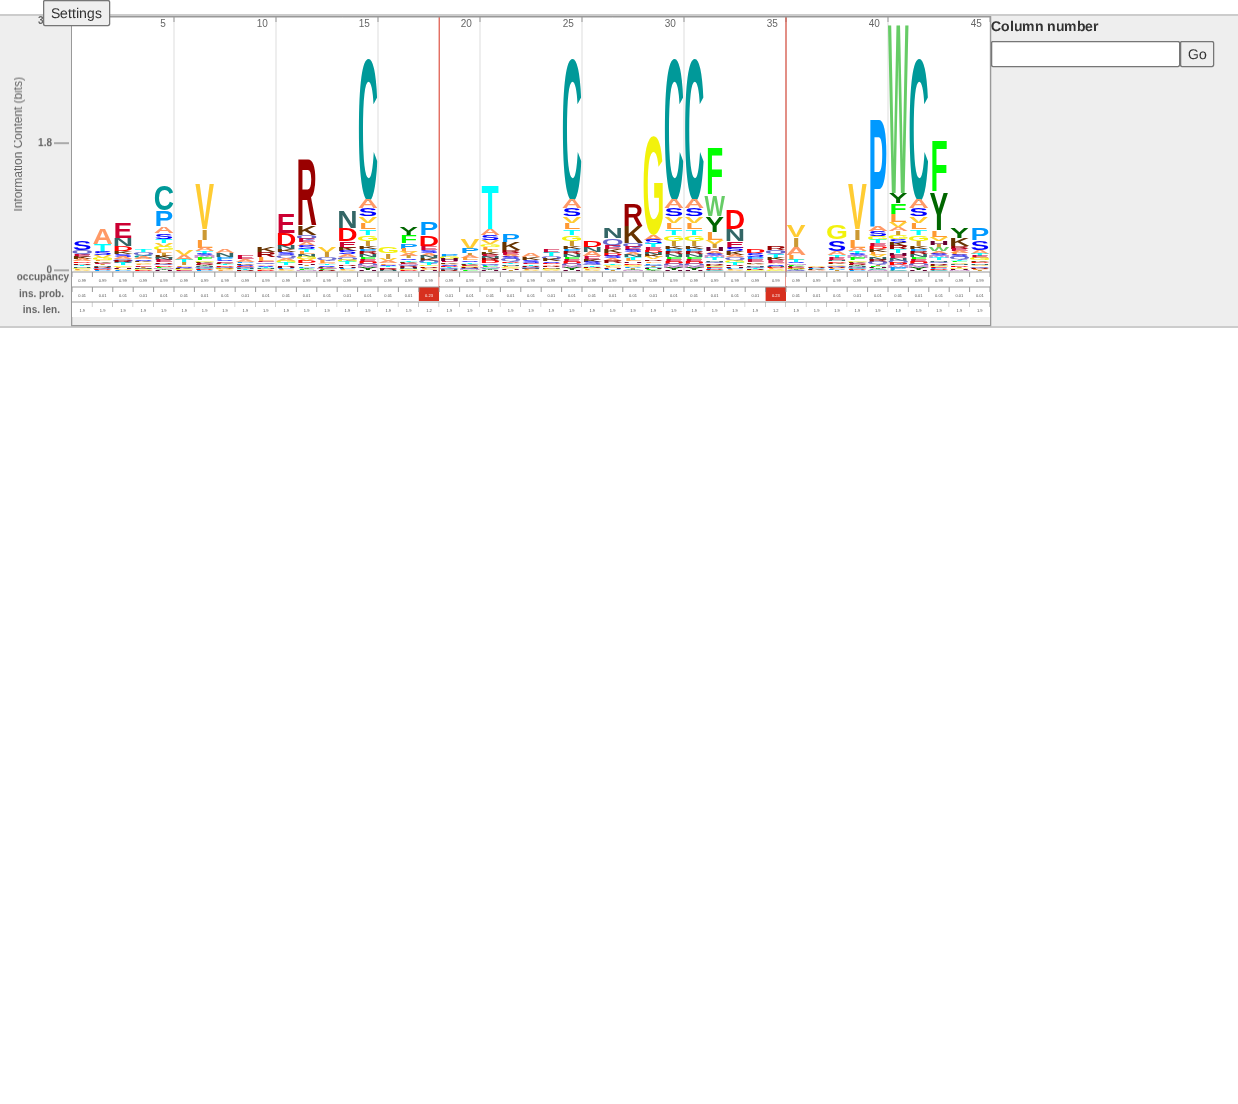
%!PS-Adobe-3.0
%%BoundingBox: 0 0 1238 1104
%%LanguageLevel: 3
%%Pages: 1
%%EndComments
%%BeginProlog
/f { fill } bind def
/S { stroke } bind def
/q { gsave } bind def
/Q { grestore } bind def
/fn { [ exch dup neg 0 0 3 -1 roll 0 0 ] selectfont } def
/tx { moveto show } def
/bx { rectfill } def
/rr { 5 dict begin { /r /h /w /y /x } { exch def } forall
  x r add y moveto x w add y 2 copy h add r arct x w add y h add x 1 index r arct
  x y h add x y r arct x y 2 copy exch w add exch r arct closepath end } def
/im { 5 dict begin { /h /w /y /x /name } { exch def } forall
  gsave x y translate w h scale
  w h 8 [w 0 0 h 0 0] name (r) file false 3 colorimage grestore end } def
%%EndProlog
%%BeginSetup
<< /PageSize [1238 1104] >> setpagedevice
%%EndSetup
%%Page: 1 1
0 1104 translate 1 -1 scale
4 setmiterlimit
1 setgray
0 0 1238 1104 bx
0.933 setgray
0 16 1238 310 bx
0.8 setgray
0 14 1238 2 bx
0 326 1238 2 bx
(image0.raw) 14 16 55 298 im
0.6 setgray
71.5 16.5 919 309 rectstroke
(image1.raw) 72 17 918 300 im
0.937 setgray
43.5 0.5 66 25 1.5 rr q f Q
0.463 setgray
S
/LiberationSans-Regular 14 fn
0.2 setgray
(Settings) 51 18 tx
/LiberationSans-Bold 14 fn
(Column number) 991 31 tx
1 setgray
991.5 41.5 188 25 1.5 rr q f Q
0.463 setgray
S
1180.5 41.5 33 25 1.5 rr S
/LiberationSans-Regular 14 fn
0.2 setgray
(Go) 1188 59 tx
showpage
%%EOF
